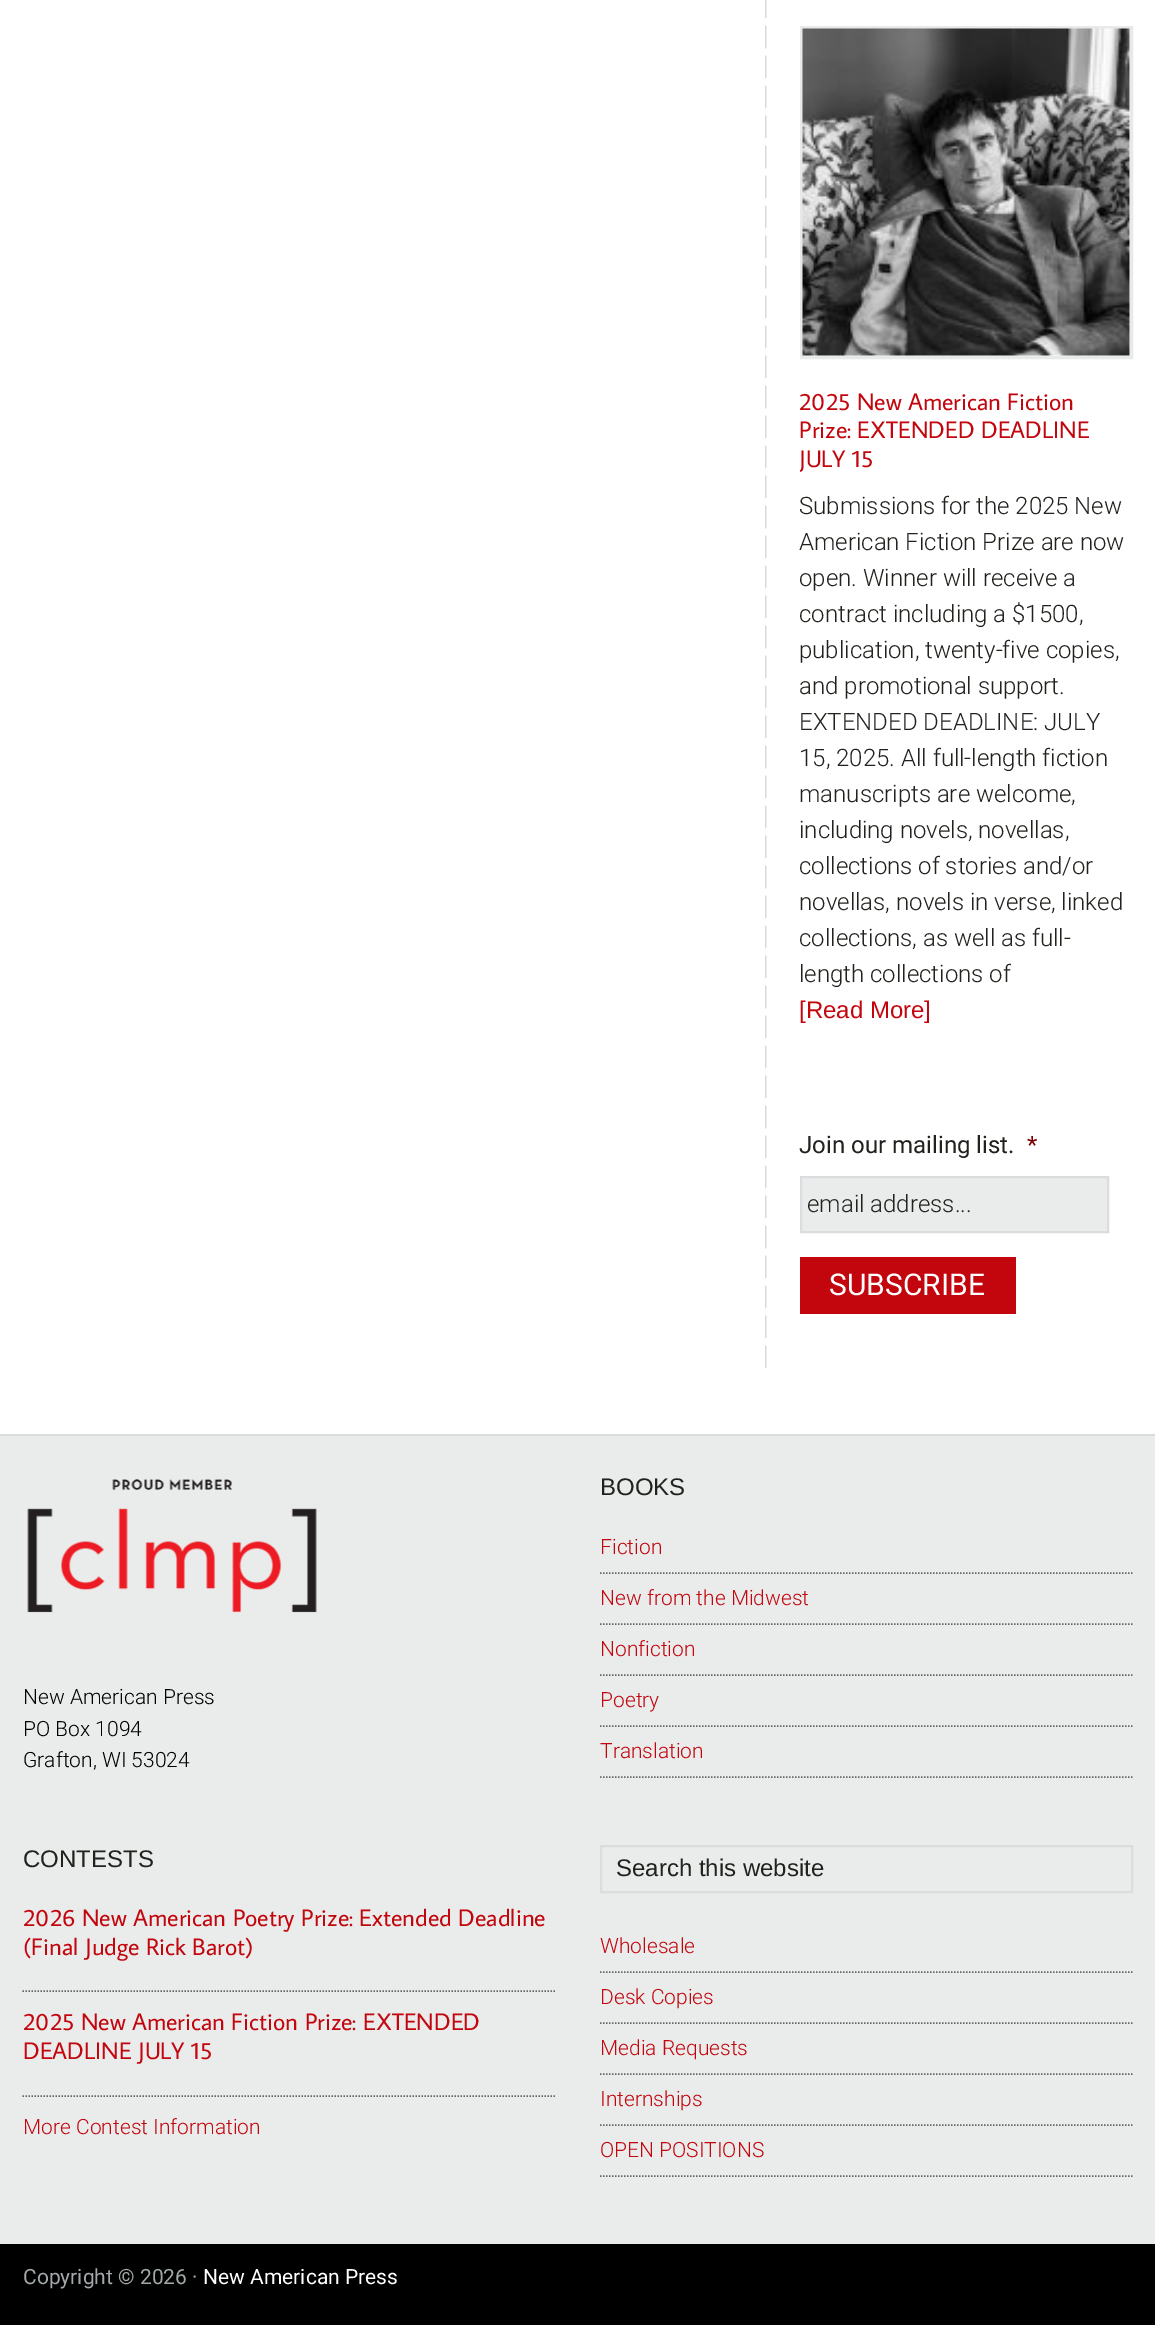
%!PS-Adobe-3.0
%%BoundingBox: 0 0 1155 2325
%%LanguageLevel: 3
%%Pages: 1
%%EndComments
%%BeginProlog
/m { moveto } bind def
/l { lineto } bind def
/h { closepath } bind def
/f { fill } bind def
/S { stroke } bind def
/q { gsave } bind def
/Q { grestore } bind def
/w { setlinewidth } bind def
/fn { [ exch dup neg 0 0 3 -1 roll 0 0 ] selectfont } def
/tx { moveto show } def
/bx { rectfill } def
/im { 5 dict begin { /h /w /y /x /name } { exch def } forall
  gsave x y translate w h scale
  w h 8 [w 0 0 h 0 0] name (r) file false 3 colorimage grestore end } def
%%EndProlog
%%BeginSetup
<< /PageSize [1155 2325] >> setpagedevice
%%EndSetup
%%Page: 1 1
0 2325 translate 1 -1 scale
4 setmiterlimit
1 setgray
0 0 1155 2325 bx
(image0.raw) 765 0 2 1369 im
0.906 0.914 0.918 setrgbcolor
3 w
801.5 27.5 330 330 rectstroke
(image1.raw) 802 28 328 328 im
/AverageSans-Regular 24 fn
0.765 0.024 0.055 setrgbcolor
(2025 New American Fiction) 799 410 tx
(Prize: EXTENDED DEADLINE) 799 438 tx
q
800 387 333 87 rectclip
(JULY 15) 799 467 tx
Q
/Roboto-Light 24 fn
0.125 0.133 0.114 setrgbcolor
(Submissions for the 2025 New) 799 514 tx
(American Fiction Prize are now) 799 550 tx
(open. Winner will receive a) 799 586 tx
(contract including a $1500,) 799 622 tx
(publication, twenty-five copies,) 799 658 tx
(and promotional support.) 799 694 tx
(EXTENDED DEADLINE: JULY) 799 730 tx
(15, 2025. All full-length fiction) 799 766 tx
(manuscripts are welcome,) 799 802 tx
(including novels, novellas,) 799 838 tx
(collections of stories and/or) 799 874 tx
(novellas, novels in verse, linked) 799 910 tx
(collections, as well as full-) 799 946 tx
(length collections of) 799 982 tx
/LiberationSans-Regular 24 fn
0.765 0.024 0.055 setrgbcolor
([Read More]) 799 1018 tx
/Roboto-Regular 24 fn
0.125 0.133 0.114 setrgbcolor
(Join our mailing list.) 799 1153 tx
0.475 0 0 setrgbcolor
(*) 1027 1153 tx
0.918 0.925 0.925 setrgbcolor
801 1177 m 1108 1177 l 1108 1232 l 801 1232 l h q f Q
0.855 0.867 0.871 setrgbcolor
2 w
S
/Roboto-Light 24 fn
0.125 0.133 0.114 setrgbcolor
(email address...) 807 1212 tx
0.765 0.024 0.055 setrgbcolor
800 1257 216 57 bx
/Roboto-Regular 30 fn
1 setgray
(SUBSCRIBE) 829 1295 tx
0.918 0.925 0.925 setrgbcolor
0 1436 1155 808 bx
0.855 0.867 0.871 setrgbcolor
0 1434 1155 2 bx
(image2.raw) 27 1479 290 134 im
/Roboto-Light 21 fn
0 setgray
(New American Press) 23 1704 tx
(PO Box 1094) 23 1736 tx
(Grafton, WI 53024) 23 1767 tx
/LiberationSans-Regular 24 fn
0.125 0.133 0.114 setrgbcolor
(BOOKS) 600 1495 tx
0.4 setgray
1.5 w
[1.5 1.5] 0 setdash
600 1573 m 1132.5 1573 l S
/Roboto-Light 21 fn
0.765 0.024 0.055 setrgbcolor
(Fiction) 600 1554 tx
0.4 setgray
600 1624 m 1132.5 1624 l S
0.765 0.024 0.055 setrgbcolor
(New from the Midwest) 600 1605 tx
0.4 setgray
600 1675 m 1132.5 1675 l S
0.765 0.024 0.055 setrgbcolor
(Nonfiction) 600 1656 tx
0.4 setgray
600 1726 m 1132.5 1726 l S
0.765 0.024 0.055 setrgbcolor
(Poetry) 600 1707 tx
0.4 setgray
600 1777 m 1132.5 1777 l S
0.765 0.024 0.055 setrgbcolor
(Translation) 600 1758 tx
/LiberationSans-Regular 24 fn
0.125 0.133 0.114 setrgbcolor
(CONTESTS) 23 1867 tx
0.4 setgray
22.5 1991 m 555 1991 l S
/AverageSans-Regular 24 fn
0.765 0.024 0.055 setrgbcolor
(2026 New American Poetry Prize: Extended Deadline) 23 1926 tx
(\(Final Judge Rick Barot\)) 23 1955 tx
0.4 setgray
22.5 2096 m 555 2096 l S
0.765 0.024 0.055 setrgbcolor
(2025 New American Fiction Prize: EXTENDED) 23 2030 tx
(DEADLINE JULY 15) 23 2059 tx
/Roboto-Light 21 fn
(More Contest Information) 23 2134 tx
0.855 0.867 0.871 setrgbcolor
2 w
[] 0 setdash
601 1846 531 46 rectstroke
/LiberationSans-Regular 24 fn
0.125 0.133 0.114 setrgbcolor
(Search this website) 616 1876 tx
0.4 setgray
1.5 w
[1.5 1.5] 0 setdash
600 1972 m 1132.5 1972 l S
/Roboto-Light 21 fn
0.765 0.024 0.055 setrgbcolor
(Wholesale) 600 1953 tx
0.4 setgray
600 2023 m 1132.5 2023 l S
0.765 0.024 0.055 setrgbcolor
(Desk Copies) 600 2004 tx
0.4 setgray
600 2074 m 1132.5 2074 l S
0.765 0.024 0.055 setrgbcolor
(Media Requests) 600 2055 tx
0.4 setgray
600 2125 m 1132.5 2125 l S
0.765 0.024 0.055 setrgbcolor
(Internships) 600 2106 tx
0.4 setgray
600 2176 m 1132.5 2176 l S
0.765 0.024 0.055 setrgbcolor
(OPEN POSITIONS) 600 2157 tx
0 setgray
0 2244 1155 81 bx
/Roboto-Regular 21 fn
0.639 0.663 0.667 setrgbcolor
(Copyright © 2026 ·) 23 2284 tx
1 setgray
(New American Press) 203 2284 tx
showpage
%%EOF
